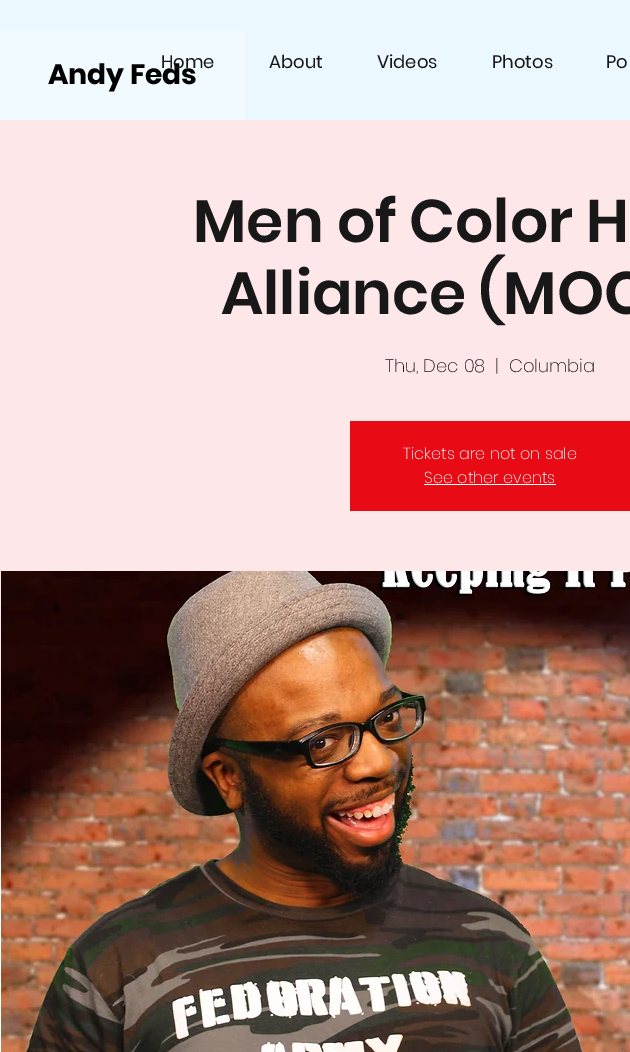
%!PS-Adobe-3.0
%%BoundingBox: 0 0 630 1052
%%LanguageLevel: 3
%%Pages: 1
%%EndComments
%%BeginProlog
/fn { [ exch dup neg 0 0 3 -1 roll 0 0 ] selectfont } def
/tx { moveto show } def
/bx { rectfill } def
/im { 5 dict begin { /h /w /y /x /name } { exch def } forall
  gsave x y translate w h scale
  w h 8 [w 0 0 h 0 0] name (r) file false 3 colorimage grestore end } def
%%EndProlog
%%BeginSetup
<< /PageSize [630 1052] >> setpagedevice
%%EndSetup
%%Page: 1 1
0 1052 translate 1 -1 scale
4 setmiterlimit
1 setgray
0 0 630 1052 bx
0.925 0.973 1 setrgbcolor
0 0 630 120 bx
0.941 0.98 1 setrgbcolor
0 30 245 90 bx
/Poppins-Bold 28 fn
0 setgray
(Andy Feds) 48 84 tx
/Poppins-Regular 18 fn
0.094 setgray
(Home) 161 68 tx
(About) 269 68 tx
(Videos) 377 68 tx
(Photos) 492 68 tx
(Po) 606 68 tx
0.992 0.906 0.91 setrgbcolor
0 120 630 727 bx
/Poppins-SemiBold 60 fn
0.094 setgray
(Men of Color H) 193 242 tx
(Alliance \(MOC) 221 314 tx
/Poppins-ExtraLight 18 fn
(Thu, Dec 08) 385 372 tx
(|) 495 372 tx
(Columbia) 509 372 tx
0.91 0.039 0.078 setrgbcolor
350 421 280 90 bx
/Poppins-ExtraLight 16 fn
1 setgray
(Tickets are not on sale) 403 459 tx
(See other events) 424 483 tx
424 484 132 1 bx
(image0.raw) 1 571 629 481 im
showpage
%%EOF
